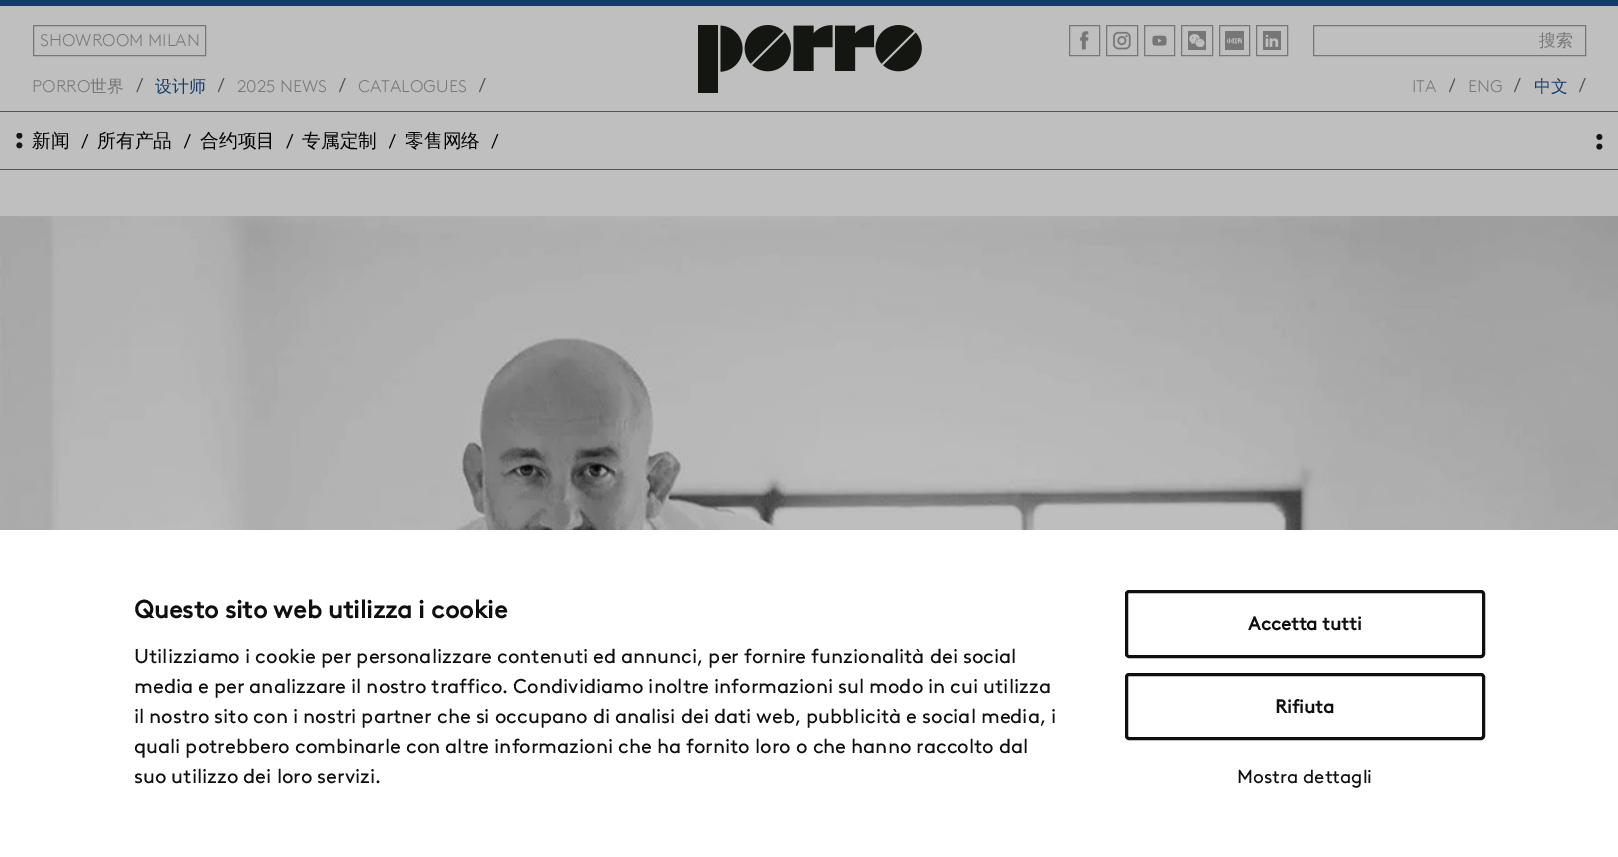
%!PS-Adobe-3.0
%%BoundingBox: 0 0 1618 857
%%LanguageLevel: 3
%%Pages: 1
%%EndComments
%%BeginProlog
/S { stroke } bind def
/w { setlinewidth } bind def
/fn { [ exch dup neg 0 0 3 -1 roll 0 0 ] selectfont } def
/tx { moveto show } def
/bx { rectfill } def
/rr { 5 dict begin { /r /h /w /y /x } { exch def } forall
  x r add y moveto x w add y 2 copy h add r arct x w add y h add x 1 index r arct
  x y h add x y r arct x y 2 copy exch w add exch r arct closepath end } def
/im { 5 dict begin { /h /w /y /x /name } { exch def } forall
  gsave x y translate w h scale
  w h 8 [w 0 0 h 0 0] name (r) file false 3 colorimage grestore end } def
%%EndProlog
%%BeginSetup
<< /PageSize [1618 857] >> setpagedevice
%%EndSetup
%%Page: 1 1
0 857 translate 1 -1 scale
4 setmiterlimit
0.749 setgray
0 0 1618 857 bx
0.075 0.231 0.424 setrgbcolor
0 0 1618 6 bx
0.467 setgray
33.5 25.5 172 30 rectstroke
/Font-Light 16.9 fn
(SHOWROOM MILAN) 40 46 tx
(image0.raw) 698 25 224 68 im
1069.5 25.5 30 30 rectstroke
(image1.raw) 1080 31 9 20 im
1106.5 25.5 31 30 rectstroke
(image2.raw) 1113 31 18 19 im
1144.5 25.5 30 30 rectstroke
(image3.raw) 1152 35 15 11 im
1181.5 25.5 31 30 rectstroke
(image4.raw) 1188 31 18 19 im
1219.5 25.5 30 30 rectstroke
(image5.raw) 1225 31 19 19 im
1256.5 25.5 31 30 rectstroke
(image6.raw) 1263 31 18 19 im
1313.5 25.5 272 30 rectstroke
/WenQuanYiZenHei-Medium 16.9 fn
(搜索) 1539 46 tx
(image7.raw) 136 78 7 15 im
/Font-Light 16.9 fn
(PORRO) 32 92 tx
/WenQuanYiZenHei-Medium 16.9 fn
(世界) 90 92 tx
(image8.raw) 218 78 7 15 im
0.075 0.231 0.424 setrgbcolor
(设计师) 155 92 tx
(image9.raw) 339 78 7 15 im
/Font-Light 16.9 fn
0.467 setgray
(2025 NEWS) 237 92 tx
(image9.raw) 479 78 7 15 im
(CATALOGUES) 358 92 tx
(image10.raw) 1449 78 6 15 im
(ITA) 1412 92 tx
(image9.raw) 1514 78 7 15 im
(ENG) 1468 92 tx
(image9.raw) 1579 78 7 15 im
/WenQuanYiZenHei-Medium 16.9 fn
0.075 0.231 0.424 setrgbcolor
(中文) 1534 92 tx
0.325 setgray
0 169 1618 1 bx
(image11.raw) 16 133 7 16 im
0 111 1618 1 bx
(image12.raw) 81 134 8 15 im
/WenQuanYiZenHei-Medium 18.75 fn
0 setgray
(新闻) 32 147 tx
(image13.raw) 184 134 7 15 im
(所有产品) 97 147 tx
(image12.raw) 286 134 8 15 im
(合约项目) 200 147 tx
(image13.raw) 389 134 7 15 im
(专属定制) 302 147 tx
(image12.raw) 491 134 8 15 im
(零售网络) 405 147 tx
(image14.raw) 1596 134 7 16 im
(image15.raw) 0 216 1618 314 im
1 setgray
0 530 1618 327 bx
/Font-Bold 25 fn
0.059 setgray
(Questo sito web utilizza i cookie) 134 618 tx
/Font-Regular 20 fn
(Utilizziamo i cookie per personalizzare contenuti ed annunci, per fornire funzionalità dei social) 134 663 tx
(media e per analizzare il nostro traffico. Condividiamo inoltre informazioni sul modo in cui utilizza) 134 693 tx
(il nostro sito con i nostri partner che si occupano di analisi dei dati web, pubblicità e social media, i) 134 723 tx
(quali potrebbero combinarle con altre informazioni che ha fornito loro o che hanno raccolto dal) 134 753 tx
(suo utilizzo dei loro servizi.) 134 783 tx
3 w
1126.5 591.5 357 65 2.5 rr S
/Font-Bold 18.75 fn
(Accetta tutti) 1248 630 tx
1126.5 674.5 357 64 2.5 rr S
(Rifiuta) 1275 713 tx
/Font-Regular 18.75 fn
(Mostra dettagli) 1237 783 tx
showpage
%%EOF
